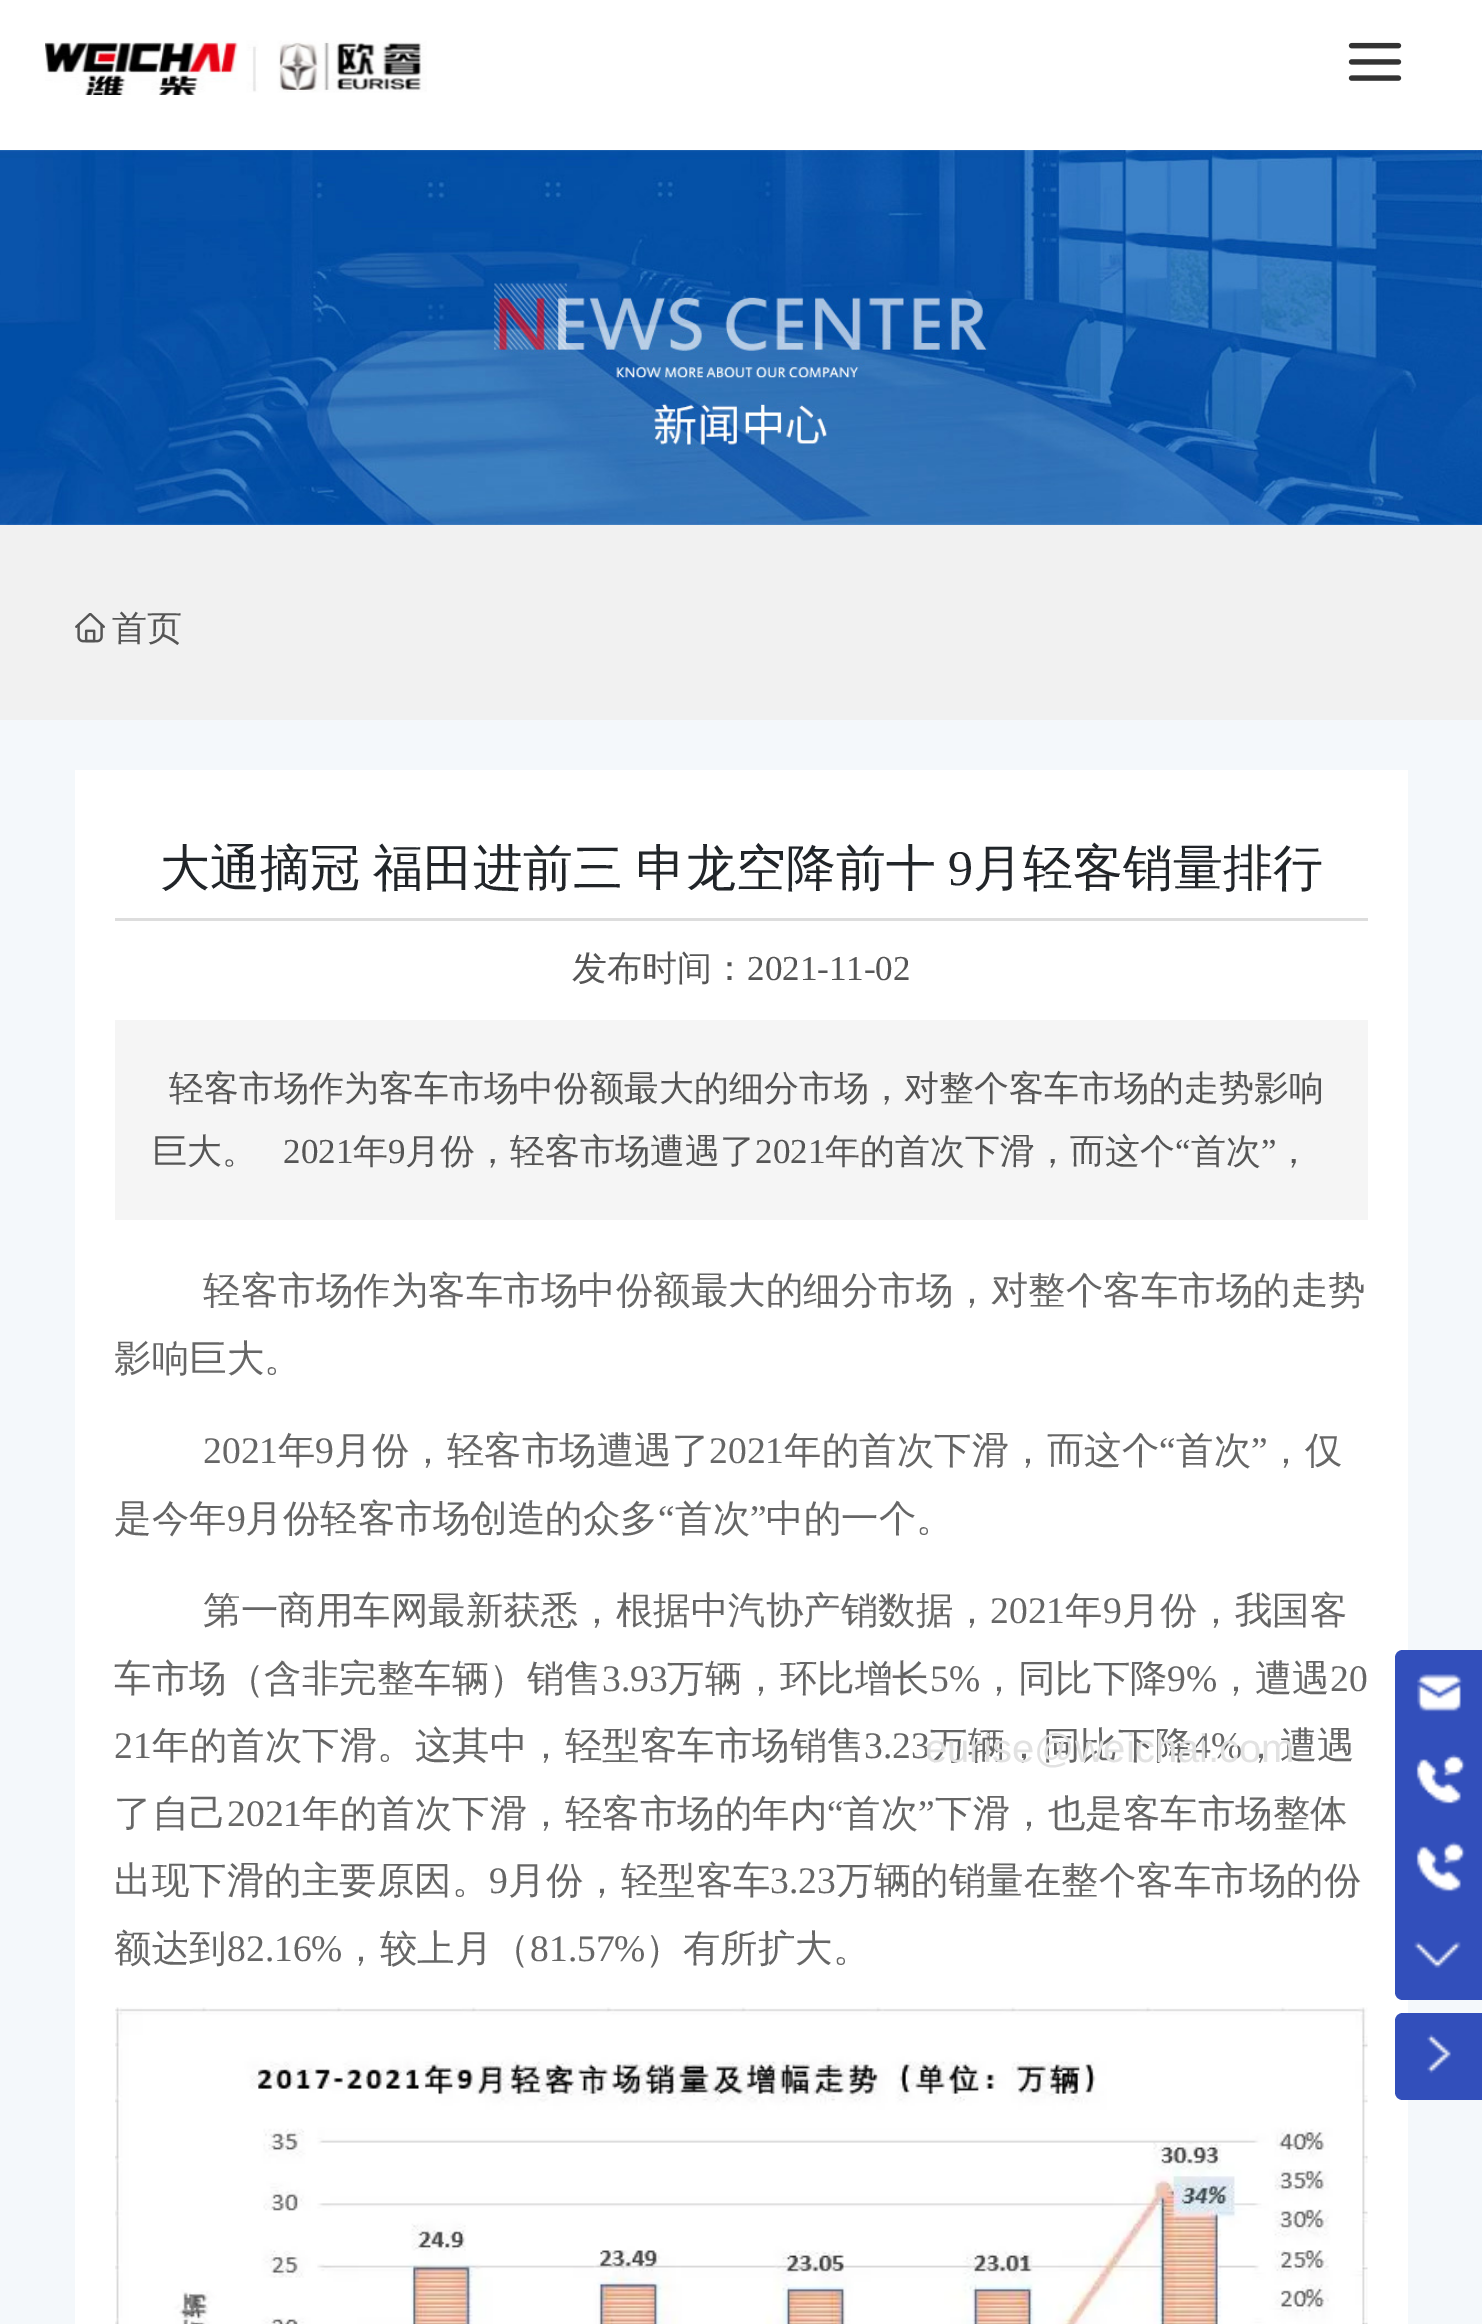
%!PS-Adobe-3.0
%%BoundingBox: 0 0 1482 2324
%%LanguageLevel: 3
%%Pages: 1
%%EndComments
%%BeginProlog
/m { moveto } bind def
/l { lineto } bind def
/c { curveto } bind def
/h { closepath } bind def
/f { fill } bind def
/fn { [ exch dup neg 0 0 3 -1 roll 0 0 ] selectfont } def
/tx { moveto show } def
/bx { rectfill } def
/im { 5 dict begin { /h /w /y /x /name } { exch def } forall
  gsave x y translate w h scale
  w h 8 [w 0 0 h 0 0] name (r) file false 3 colorimage grestore end } def
%%EndProlog
%%BeginSetup
<< /PageSize [1482 2324] >> setpagedevice
%%EndSetup
%%Page: 1 1
0 2324 translate 1 -1 scale
4 setmiterlimit
1 setgray
0 0 1482 2324 bx
(image0.raw) 45 40 382 55 im
(image1.raw) 1348 42 54 39 im
(image2.raw) 0 150 1482 375 im
0.945 setgray
0 525 1482 195 bx
(image3.raw) 75 613 30 30 im
/WenQuanYiZenHei-Medium 35 fn
0.333 setgray
(首页) 112 640 tx
0.957 0.973 0.984 setrgbcolor
0 720 1482 1604 bx
1 setgray
75 770 1333 1554 bx
/WenQuanYiZenHei-Medium 50 fn
0.129 0.145 0.161 setrgbcolor
160 885 m -2 0 32 (大通摘冠 福田进前三 申龙空降前十) widthshow
/LiberationSerif-Regular 50 fn
(9) 948 885 tx
/WenQuanYiZenHei-Medium 50 fn
(月轻客销量排行) 973 885 tx
0.867 setgray
115 918 1253 3 bx
/WenQuanYiZenHei-Medium 35 fn
0.333 setgray
(发布时间：) 572 980 tx
/LiberationSerif-Regular 35 fn
(2021-11-02) 747 980 tx
0.961 setgray
115 1020 1253 200 bx
/WenQuanYiZenHei-Medium 35 fn
0.333 setgray
(轻客市场作为客车市场中份额最大的细分市场，对整个客车市场的走势影响) 169 1100 tx
(巨大。) 152 1163 tx
/LiberationSerif-Regular 35 fn
(2021) 283 1163 tx
/WenQuanYiZenHei-Medium 35 fn
(年) 353 1163 tx
/LiberationSerif-Regular 35 fn
(9) 388 1163 tx
/WenQuanYiZenHei-Medium 35 fn
(月份，轻客市场遭遇了) 405 1163 tx
/LiberationSerif-Regular 35 fn
(2021) 755 1163 tx
/WenQuanYiZenHei-Medium 35 fn
(年的首次下滑，而这个) 825 1163 tx
/LiberationSerif-Regular 35 fn
(“) 1175 1163 tx
/WenQuanYiZenHei-Medium 35 fn
(首次) 1191 1163 tx
/LiberationSerif-Regular 35 fn
(”) 1261 1163 tx
/WenQuanYiZenHei-Medium 35 fn
(，) 1276 1163 tx
/WenQuanYiZenHei-Medium 37.5 fn
0.4 setgray
(轻客市场作为客车市场中份额最大的细分市场，对整个客车市场的走势) 203 1303 tx
(影响巨大。) 114 1371 tx
/LiberationSerif-Regular 37.5 fn
(2021) 203 1463 tx
/WenQuanYiZenHei-Medium 37.5 fn
(年) 278 1463 tx
/LiberationSerif-Regular 37.5 fn
(9) 315 1463 tx
/WenQuanYiZenHei-Medium 37.5 fn
(月份，轻客市场遭遇了) 334 1463 tx
/LiberationSerif-Regular 37.5 fn
(2021) 709 1463 tx
/WenQuanYiZenHei-Medium 37.5 fn
(年的首次下滑，而这个) 784 1463 tx
/LiberationSerif-Regular 37.5 fn
(“) 1159 1463 tx
/WenQuanYiZenHei-Medium 37.5 fn
(首次) 1176 1463 tx
/LiberationSerif-Regular 37.5 fn
(”) 1251 1463 tx
/WenQuanYiZenHei-Medium 37.5 fn
(，仅) 1267 1463 tx
(是今年) 114 1531 tx
/LiberationSerif-Regular 37.5 fn
(9) 227 1531 tx
/WenQuanYiZenHei-Medium 37.5 fn
(月份轻客市场创造的众多) 245 1531 tx
/LiberationSerif-Regular 37.5 fn
(“) 658 1531 tx
/WenQuanYiZenHei-Medium 37.5 fn
(首次) 675 1531 tx
/LiberationSerif-Regular 37.5 fn
(”) 750 1531 tx
/WenQuanYiZenHei-Medium 37.5 fn
(中的一个。) 766 1531 tx
(第一商用车网最新获悉，根据中汽协产销数据，) 203 1623 tx
/LiberationSerif-Regular 37.5 fn
(2021) 990 1623 tx
/WenQuanYiZenHei-Medium 37.5 fn
(年) 1065 1623 tx
/LiberationSerif-Regular 37.5 fn
(9) 1103 1623 tx
/WenQuanYiZenHei-Medium 37.5 fn
(月份，我国客) 1122 1623 tx
(车市场（含非完整车辆）销售) 114 1691 tx
/LiberationSerif-Regular 37.5 fn
(3.93) 602 1691 tx
/WenQuanYiZenHei-Medium 37.5 fn
(万辆，环比增长) 667 1691 tx
/LiberationSerif-Regular 37.5 fn
(5%) 930 1691 tx
/WenQuanYiZenHei-Medium 37.5 fn
(，同比下降) 980 1691 tx
/LiberationSerif-Regular 37.5 fn
(9%) 1167 1691 tx
/WenQuanYiZenHei-Medium 37.5 fn
(，遭遇) 1217 1691 tx
/LiberationSerif-Regular 37.5 fn
(20) 1330 1691 tx
(21) 114 1758 tx
/WenQuanYiZenHei-Medium 37.5 fn
(年的首次下滑。这其中，轻型客车市场销售) 152 1758 tx
/LiberationSerif-Regular 37.5 fn
(3.23) 864 1758 tx
/WenQuanYiZenHei-Medium 37.5 fn
(万辆，同比下降) 930 1758 tx
/LiberationSerif-Regular 37.5 fn
(4%) 1192 1758 tx
/WenQuanYiZenHei-Medium 37.5 fn
(，遭遇) 1242 1758 tx
(了自己) 114 1826 tx
/LiberationSerif-Regular 37.5 fn
(2021) 227 1826 tx
/WenQuanYiZenHei-Medium 37.5 fn
(年的首次下滑，轻客市场的年内) 302 1826 tx
/LiberationSerif-Regular 37.5 fn
(“) 827 1826 tx
/WenQuanYiZenHei-Medium 37.5 fn
(首次) 843 1826 tx
/LiberationSerif-Regular 37.5 fn
(”) 918 1826 tx
/WenQuanYiZenHei-Medium 37.5 fn
(下滑，也是客车市场整体) 935 1826 tx
(出现下滑的主要原因。) 114 1893 tx
/LiberationSerif-Regular 37.5 fn
(9) 489 1893 tx
/WenQuanYiZenHei-Medium 37.5 fn
(月份，轻型客车) 508 1893 tx
/LiberationSerif-Regular 37.5 fn
(3.23) 770 1893 tx
/WenQuanYiZenHei-Medium 37.5 fn
(万辆的销量在整个客车市场的份) 836 1893 tx
(额达到) 114 1961 tx
/LiberationSerif-Regular 37.5 fn
(82.16%) 227 1961 tx
/WenQuanYiZenHei-Medium 37.5 fn
(，较上月（) 342 1961 tx
/LiberationSerif-Regular 37.5 fn
(81.57%) 530 1961 tx
/WenQuanYiZenHei-Medium 37.5 fn
(）有所扩大。) 645 1961 tx
(image4.raw) 115 2007 1253 317 im
0.196 0.31 0.733 setrgbcolor
1403 1650 m 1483 1650 l 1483 2000 l 1403 2000 l 1398.5 2000 1395 1996.5 1395 1992 c 1395 1658 l 1395 1653.5 1398.5 1650 1403 1650 c h f
(image5.raw) 1417 1674 46 38 im
/LiberationSans-Regular 40 fn
0.886 setgray
(eurise@weichai.com) 925 1762 tx
(image6.raw) 1416 1754 50 50 im
(image7.raw) 1416 1841 50 51 im
(image8.raw) 1414 1941 47 27 im
0.196 0.31 0.733 setrgbcolor
1403 2013 m 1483 2013 l 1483 2100 l 1403 2100 l 1398.5 2100 1395 2096.5 1395 2092 c 1395 2021 l 1395 2016.5 1398.5 2013 1403 2013 c h f
(image9.raw) 1427 2034 24 40 im
showpage
%%EOF
